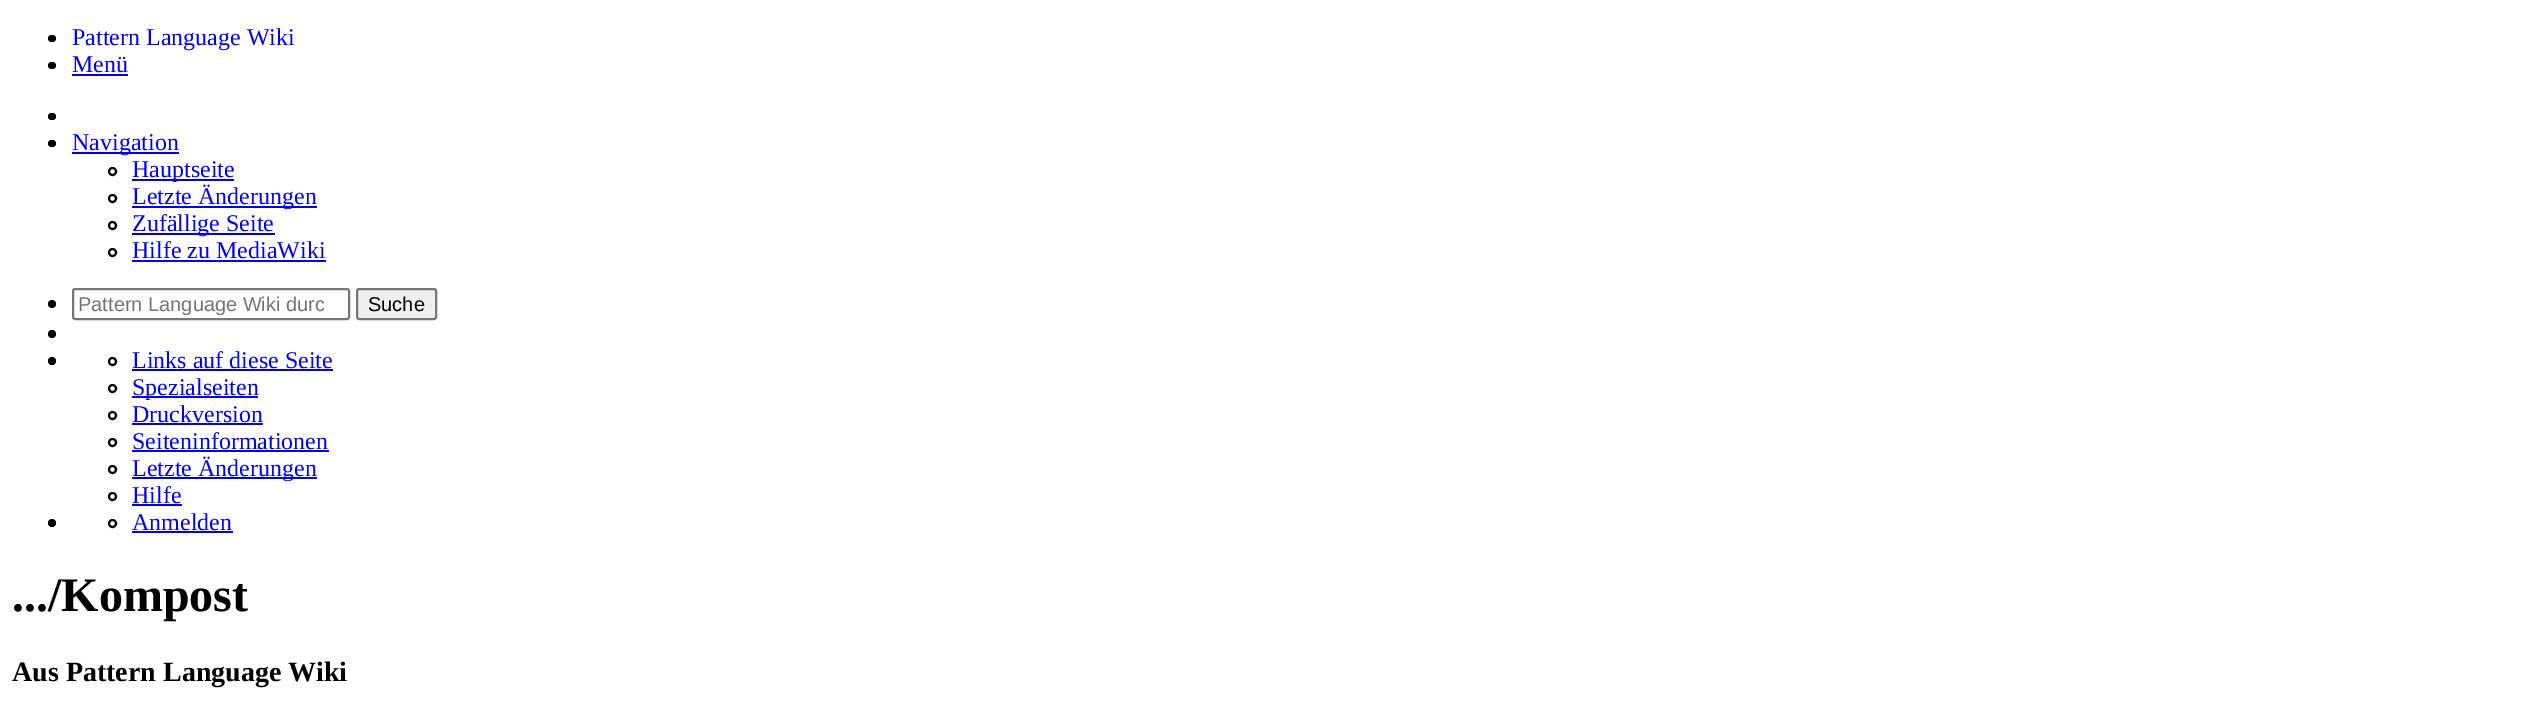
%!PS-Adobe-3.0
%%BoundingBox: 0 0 2531 721
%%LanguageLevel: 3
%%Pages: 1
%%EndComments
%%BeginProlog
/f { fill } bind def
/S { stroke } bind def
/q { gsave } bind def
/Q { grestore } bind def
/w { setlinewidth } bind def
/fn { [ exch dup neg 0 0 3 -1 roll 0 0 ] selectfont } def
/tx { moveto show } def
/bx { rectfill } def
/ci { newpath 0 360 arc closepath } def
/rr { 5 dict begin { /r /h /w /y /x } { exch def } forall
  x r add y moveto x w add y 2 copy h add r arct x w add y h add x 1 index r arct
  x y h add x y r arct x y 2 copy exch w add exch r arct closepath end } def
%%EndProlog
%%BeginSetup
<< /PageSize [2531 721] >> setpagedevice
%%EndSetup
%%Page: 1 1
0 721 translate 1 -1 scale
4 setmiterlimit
1 setgray
0 0 2531 721 bx
0 setgray
48 35 8 7 3.5 rr f
/LiberationSerif-Regular 24 fn
0 0 0.933 setrgbcolor
(Pattern Language Wiki) 72 45 tx
0 setgray
48 62 8 7 3.5 rr f
0 0 0.933 setrgbcolor
(Menü) 72 72 tx
72 74 56 2 bx
0 setgray
48 113 8 7 3.5 rr f
48 140 8 7 3.5 rr f
0 0 0.933 setrgbcolor
72 152 107 2 bx
(Navigation) 72 150 tx
0 setgray
2 w
112.5 171.5 3.5 ci S
0 0 0.933 setrgbcolor
132 179 102 2 bx
(Hauptseite) 132 177 tx
0 setgray
112.5 198.5 3.5 ci S
0 0 0.933 setrgbcolor
132 206 185 2 bx
(Letzte Änderungen) 132 204 tx
0 setgray
112.5 225.5 3.5 ci S
0 0 0.933 setrgbcolor
132 233 143 2 bx
(Zufällige Seite) 132 231 tx
0 setgray
112.5 252.5 3.5 ci S
0 0 0.933 setrgbcolor
(Hilfe zu MediaWiki) 132 258 tx
132 260 194 2 bx
0 setgray
52 304 4 ci f
0.463 setgray
73 289 276 30 2 rr S
q
78 293 246 22 rectclip
/LiberationSans-Regular 20 fn
0.459 setgray
(Pattern Language Wiki durc) 78 311 tx
Q
0.937 setgray
357 289 79 30 2 rr q f Q
0.463 setgray
S
/LiberationSans-Regular 20 fn
0 setgray
(Suche) 368 311 tx
52 334 4 ci f
52 361 4 ci f
112.5 361.5 3.5 ci S
/LiberationSerif-Regular 24 fn
0 0 0.933 setrgbcolor
(Links auf diese Seite) 132 368 tx
132 369 201 2 bx
0 setgray
112.5 388.5 3.5 ci S
0 0 0.933 setrgbcolor
132 396 126 2 bx
(Spezialseiten) 132 395 tx
0 setgray
112.5 415.5 3.5 ci S
0 0 0.933 setrgbcolor
(Druckversion) 132 422 tx
132 423 131 2 bx
0 setgray
112.5 442.5 3.5 ci S
0 0 0.933 setrgbcolor
(Seiteninformationen) 132 449 tx
132 450 197 2 bx
0 setgray
112.5 469.5 3.5 ci S
0 0 0.933 setrgbcolor
132 477 185 2 bx
(Letzte Änderungen) 132 476 tx
0 setgray
112.5 496.5 3.5 ci S
0 0 0.933 setrgbcolor
(Hilfe) 132 503 tx
132 504 50 2 bx
0 setgray
52 523 4 ci f
112.5 523.5 3.5 ci S
0 0 0.933 setrgbcolor
(Anmelden) 132 530 tx
132 531 101 2 bx
/LiberationSerif-Bold 48 fn
0 setgray
(.../Kompost) 12 611 tx
/LiberationSerif-Bold 28 fn
(Aus Pattern Language Wiki) 12 681 tx
showpage
%%EOF
